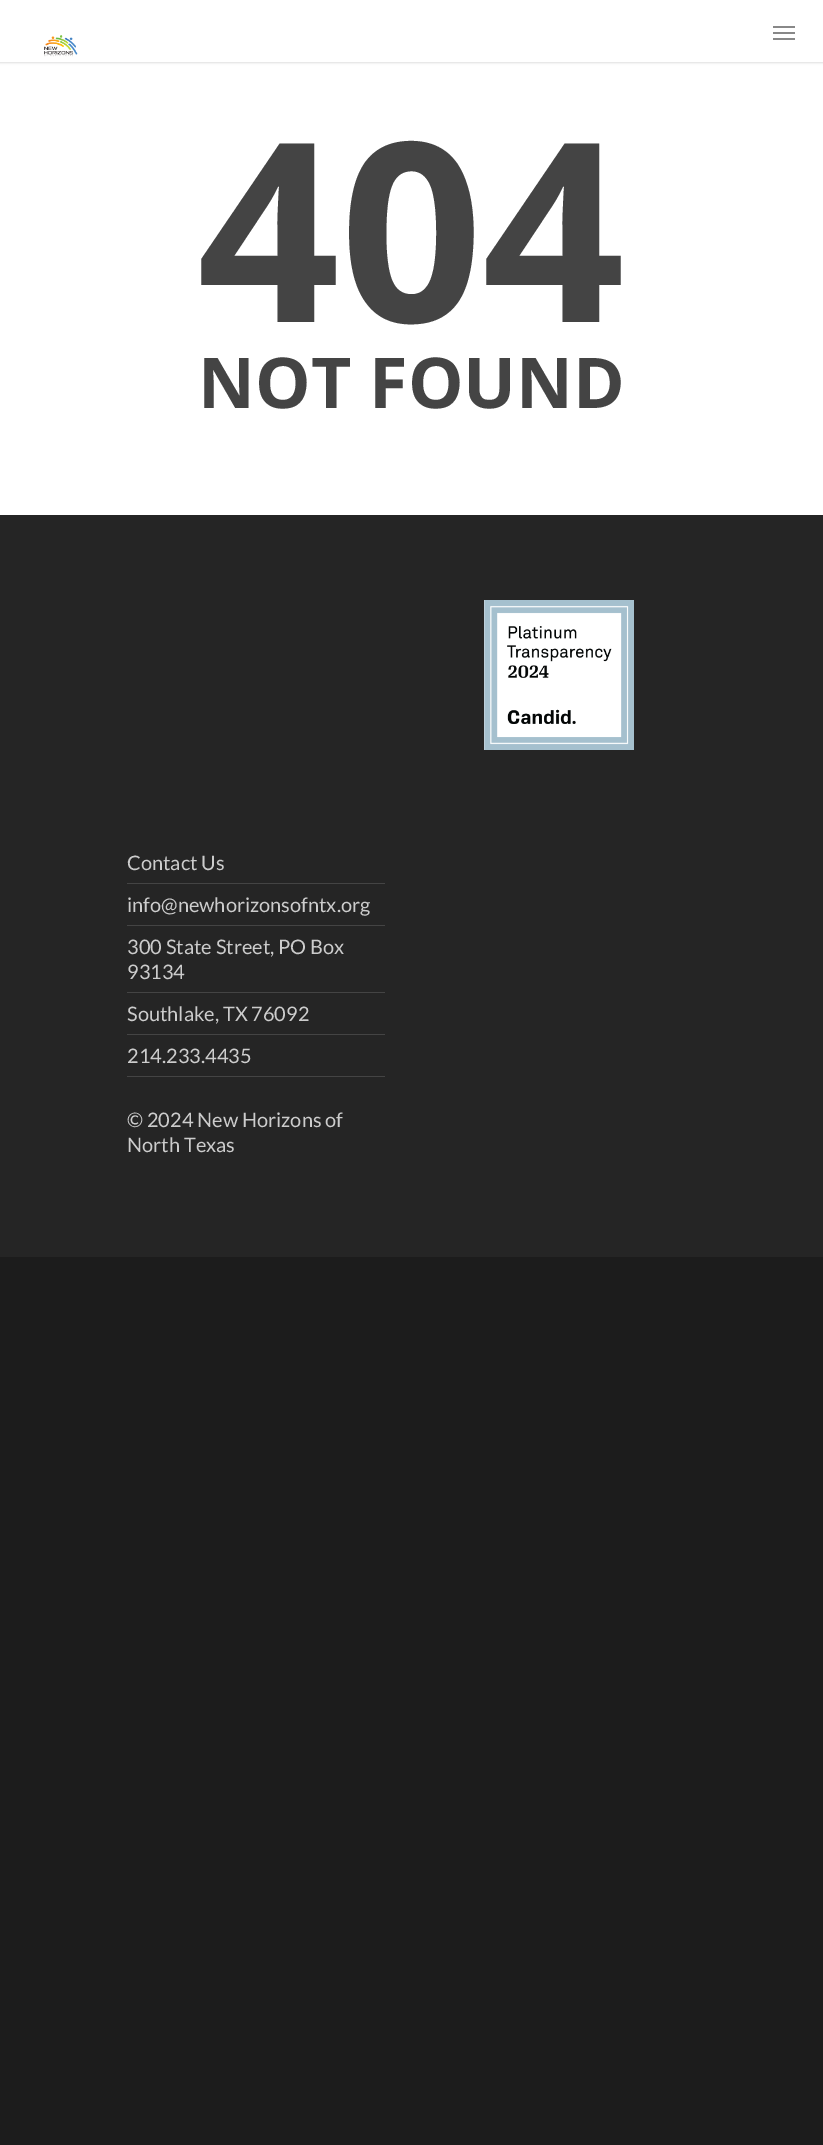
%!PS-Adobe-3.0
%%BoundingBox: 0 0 823 2145
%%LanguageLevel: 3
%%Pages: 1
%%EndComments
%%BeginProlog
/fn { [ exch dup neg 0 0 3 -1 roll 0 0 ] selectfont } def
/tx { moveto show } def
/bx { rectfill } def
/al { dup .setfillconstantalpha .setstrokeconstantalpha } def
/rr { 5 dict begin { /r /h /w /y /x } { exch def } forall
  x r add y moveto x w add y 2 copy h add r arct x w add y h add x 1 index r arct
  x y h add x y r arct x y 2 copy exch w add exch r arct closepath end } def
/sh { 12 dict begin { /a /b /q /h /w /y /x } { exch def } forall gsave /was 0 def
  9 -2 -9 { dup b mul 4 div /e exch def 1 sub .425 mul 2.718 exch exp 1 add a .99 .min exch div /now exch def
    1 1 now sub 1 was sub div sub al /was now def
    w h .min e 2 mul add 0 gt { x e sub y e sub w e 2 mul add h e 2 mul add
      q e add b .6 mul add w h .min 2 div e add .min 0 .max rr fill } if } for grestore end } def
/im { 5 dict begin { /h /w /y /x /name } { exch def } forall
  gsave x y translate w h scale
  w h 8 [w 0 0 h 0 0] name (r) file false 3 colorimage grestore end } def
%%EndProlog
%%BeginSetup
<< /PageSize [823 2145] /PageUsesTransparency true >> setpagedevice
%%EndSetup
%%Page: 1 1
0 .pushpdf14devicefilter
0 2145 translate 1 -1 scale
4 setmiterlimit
0.11 setgray
0 0 823 2145 bx
1 setgray
0 62 823 453 bx
0 setgray
0 0 823 62 0 1.5 0.22 sh
1 setgray
0 0 823 62 bx
0.533 setgray
773 26 22 2 bx
773 38 22 2 bx
773 32 22 2 bx
(image0.raw) 44 35 34 22 im
/OpenSans-Bold 250 fn
0.267 setgray
(404) 197 322 tx
/OpenSans-Bold 70 fn
(NOT FOUND) 198 408 tx
0.145 setgray
0 515 823 742 bx
(image1.raw) 484 600 150 150 im
0.267 setgray
127 883 258 1 bx
/Lato-Regular 20 fn
0.8 setgray
(Contact Us) 127 870 tx
0.267 setgray
127 925 258 1 bx
0.8 setgray
(info@newhorizonsofntx.org) 127 912 tx
0.267 setgray
127 992 258 1 bx
0.8 setgray
(300 State Street, PO Box) 127 954 tx
(93134) 127 979 tx
0.267 setgray
127 1034 258 1 bx
0.8 setgray
(Southlake, TX 76092) 127 1021 tx
0.267 setgray
127 1076 258 1 bx
0.8 setgray
(214.233.4435) 127 1063 tx
(© 2024 New Horizons of) 127 1127 tx
(North Texas) 127 1152 tx
.poppdf14devicefilter showpage
%%EOF
